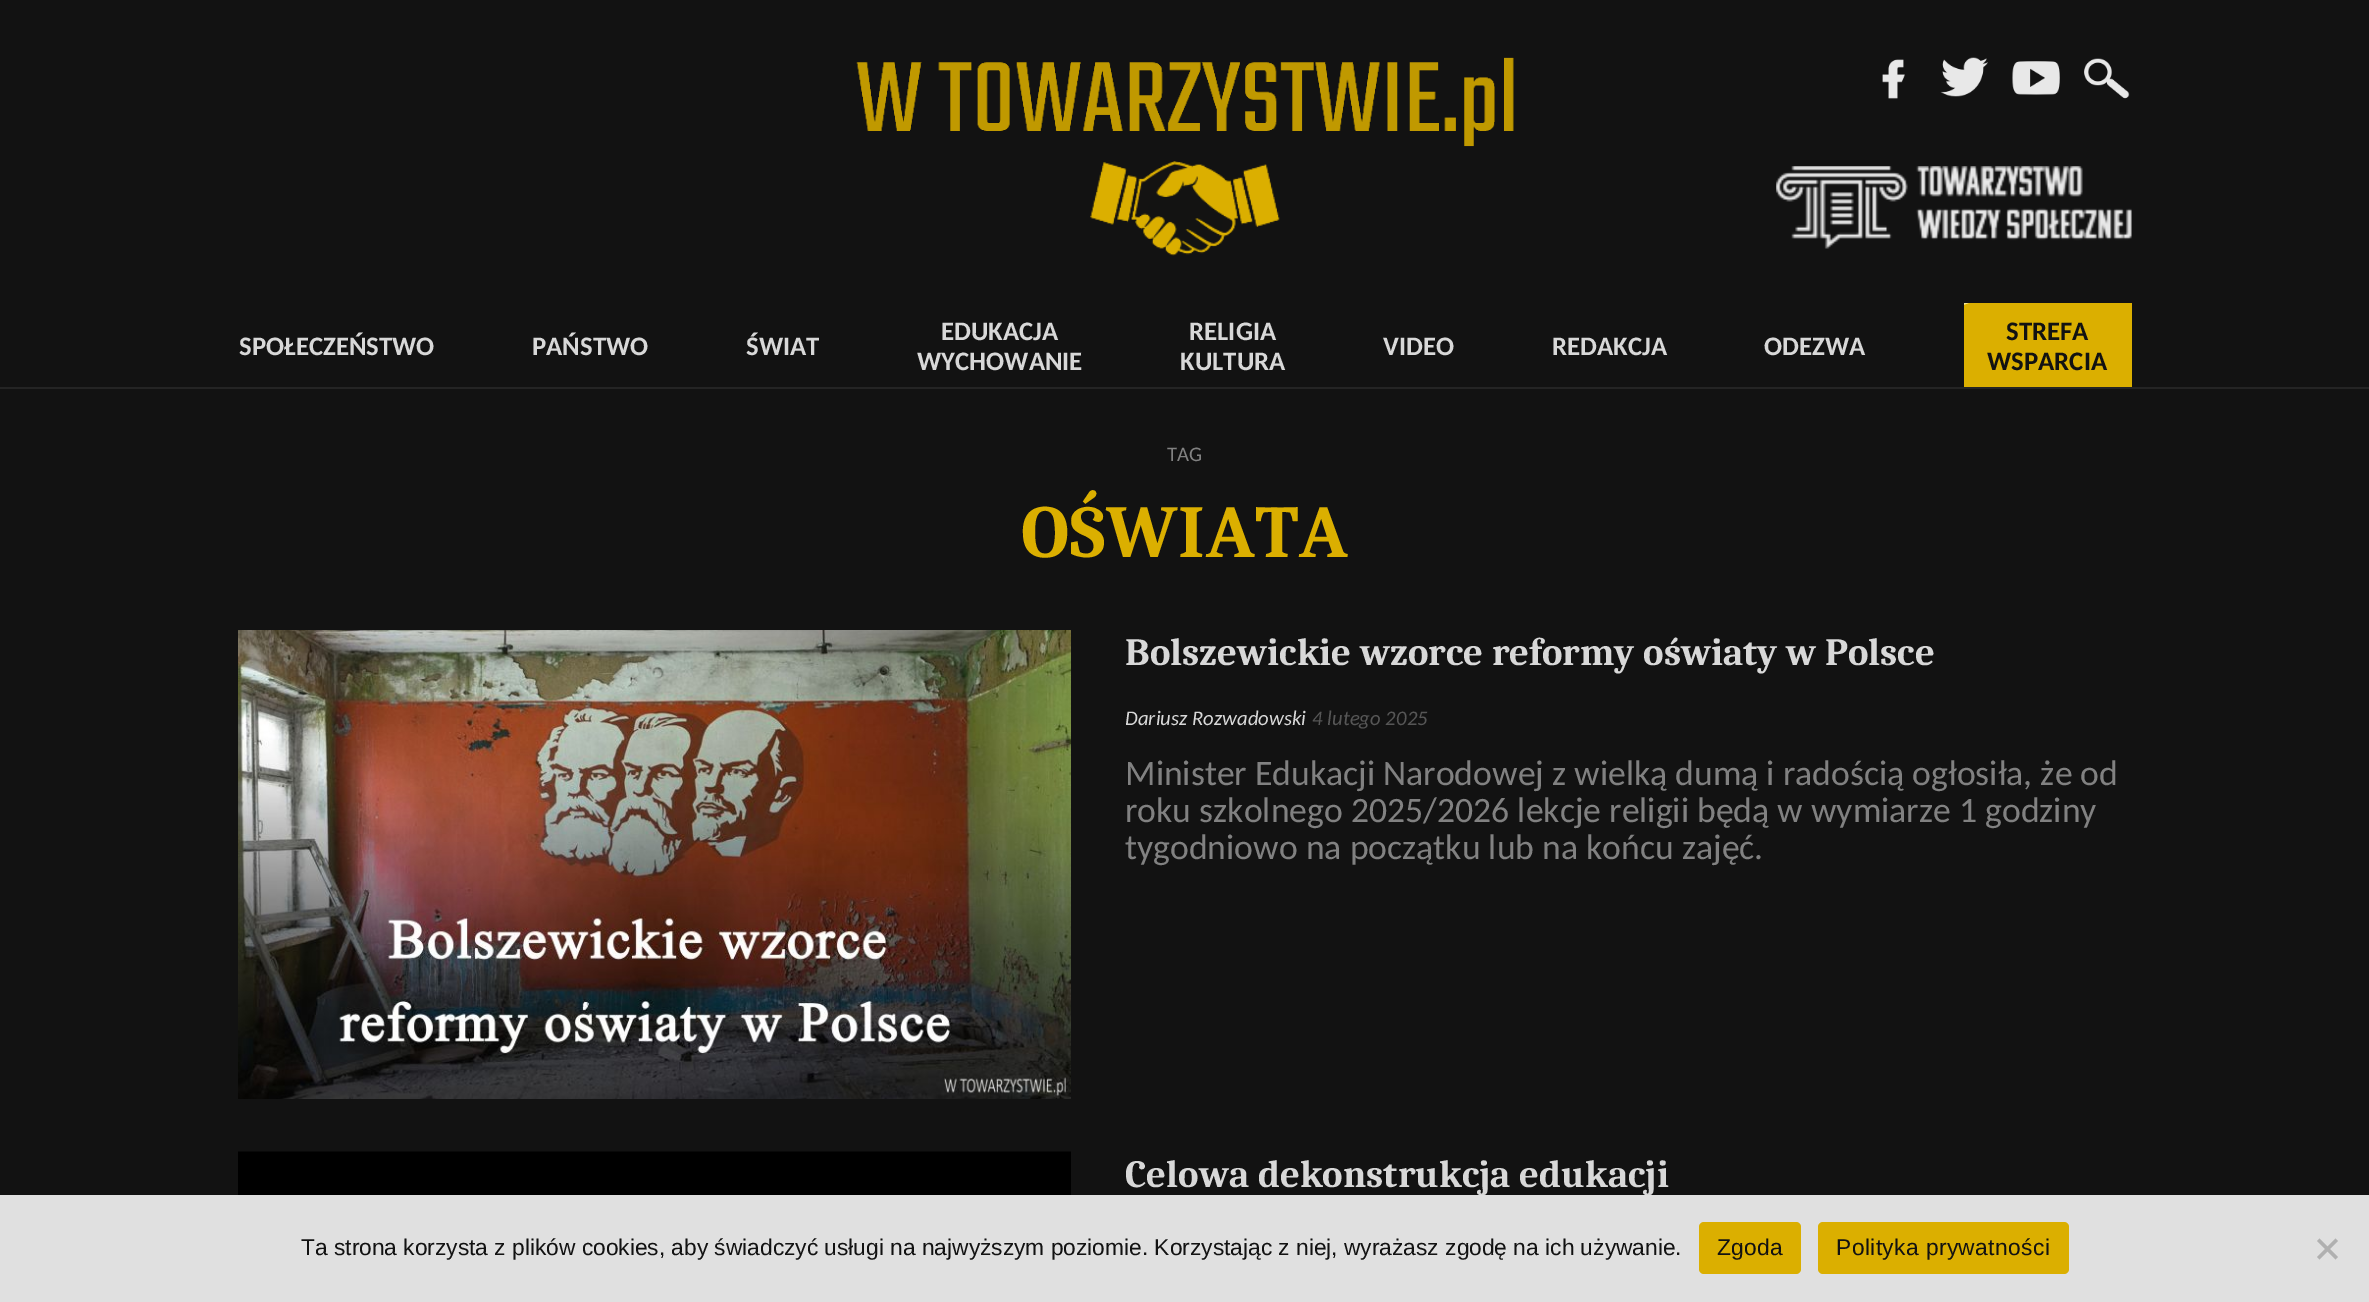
%!PS-Adobe-3.0
%%BoundingBox: 0 0 2369 1302
%%LanguageLevel: 3
%%Pages: 1
%%EndComments
%%BeginProlog
/m { moveto } bind def
/l { lineto } bind def
/h { closepath } bind def
/f { fill } bind def
/q { gsave } bind def
/Q { grestore } bind def
/fn { [ exch dup neg 0 0 3 -1 roll 0 0 ] selectfont } def
/tx { moveto show } def
/bx { rectfill } def
/rr { 5 dict begin { /r /h /w /y /x } { exch def } forall
  x r add y moveto x w add y 2 copy h add r arct x w add y h add x 1 index r arct
  x y h add x y r arct x y 2 copy exch w add exch r arct closepath end } def
/im { 5 dict begin { /h /w /y /x /name } { exch def } forall
  gsave x y translate w h scale
  w h 8 [w 0 0 h 0 0] name (r) file false 3 colorimage grestore end } def
%%EndProlog
%%BeginSetup
<< /PageSize [2369 1302] >> setpagedevice
%%EndSetup
%%Page: 1 1
0 1302 translate 1 -1 scale
4 setmiterlimit
0.071 setgray
0 0 2369 1302 bx
0.141 setgray
0 387 2369 2 bx
(image0.raw) 856 57 658 90 im
(image1.raw) 1090 161 190 95 im
(image2.raw) 1882 59 23 40 im
(image3.raw) 1940 57 48 40 im
(image4.raw) 2012 61 48 34 im
(image5.raw) 2084 58 46 41 im
(image6.raw) 1776 166 356 83 im
/Carlito-Bold 26.75 fn
0.847 setgray
(SPOŁECZEŃSTWO) 239 355 tx
(PAŃSTWO) 532 355 tx
(ŚWIAT) 746 355 tx
(EDUKACJA) 941 340 tx
(WYCHOWANIE) 917 370 tx
(RELIGIA) 1189 340 tx
(KULTURA) 1180 370 tx
(VIDEO) 1383 355 tx
(REDAKCJA) 1552 355 tx
(ODEZWA) 1764 355 tx
0.859 0.686 0 setrgbcolor
1964 303 168 84 bx
q
1964 303 168 84 rectclip
0.973 0.91 0.6 setrgbcolor
1950 297 m 2139 228 l 2143 239 l 1955 308 l h f
Q
0.071 setgray
(STREFA) 2006 340 tx
(WSPARCIA) 1987 370 tx
/Carlito-Regular 20.75 fn
0.506 setgray
(TAG) 1167 461 tx
/Caladea-Bold 74.5 fn
0.859 0.686 0 setrgbcolor
1021 557 m 0.75 0 (OŚWIATA) ashow
(image7.raw) 238 630 833 469 im
/Caladea-Bold 38.7 fn
0.847 setgray
(Bolszewickie wzorce reformy oświaty w Polsce) 1125 665 tx
/Carlito-Italic 20.75 fn
(Dariusz Rozwadowski) 1125 725 tx
0.337 setgray
(4 lutego 2025) 1312 725 tx
/Carlito-Regular 35.7 fn
0.506 setgray
(Minister Edukacji Narodowej z wielką dumą i radością ogłosiła, że od) 1125 785 tx
(roku szkolnego 2025/2026 lekcje religii będą w wymiarze 1 godziny) 1125 822 tx
(tygodniowo na początku lub na końcu zajęć.) 1125 859 tx
(image8.raw) 238 1151 833 44 im
/Caladea-Bold 38.7 fn
0.847 setgray
(Celowa dekonstrukcja edukacji) 1125 1187 tx
0.878 setgray
0 1195 2369 107 bx
/LiberationSans-Regular 22.75 fn
0.071 setgray
(Ta strona korzysta z plików cookies, aby świadczyć usługi na najwyższym poziomie. Korzystając z niej, wyrażasz zgodę na ich używanie.) 301 1255 tx
0.859 0.686 0 setrgbcolor
1699 1222 102 52 5 rr f
0.071 setgray
1717 1255 m 0.4 0 (Zgoda) ashow
0.859 0.686 0 setrgbcolor
1818 1222 251 52 5 rr f
0.071 setgray
1836 1255 m 0.4 0 (Polityka prywatności) ashow
0.69 setgray
2335.5 1238.5 m 2338 1241 l 2319.5 1259.5 l 2317 1257 l h f
2317 1241 m 2319.5 1238.5 l 2338 1257 l 2335.5 1259.5 l h f
showpage
%%EOF
